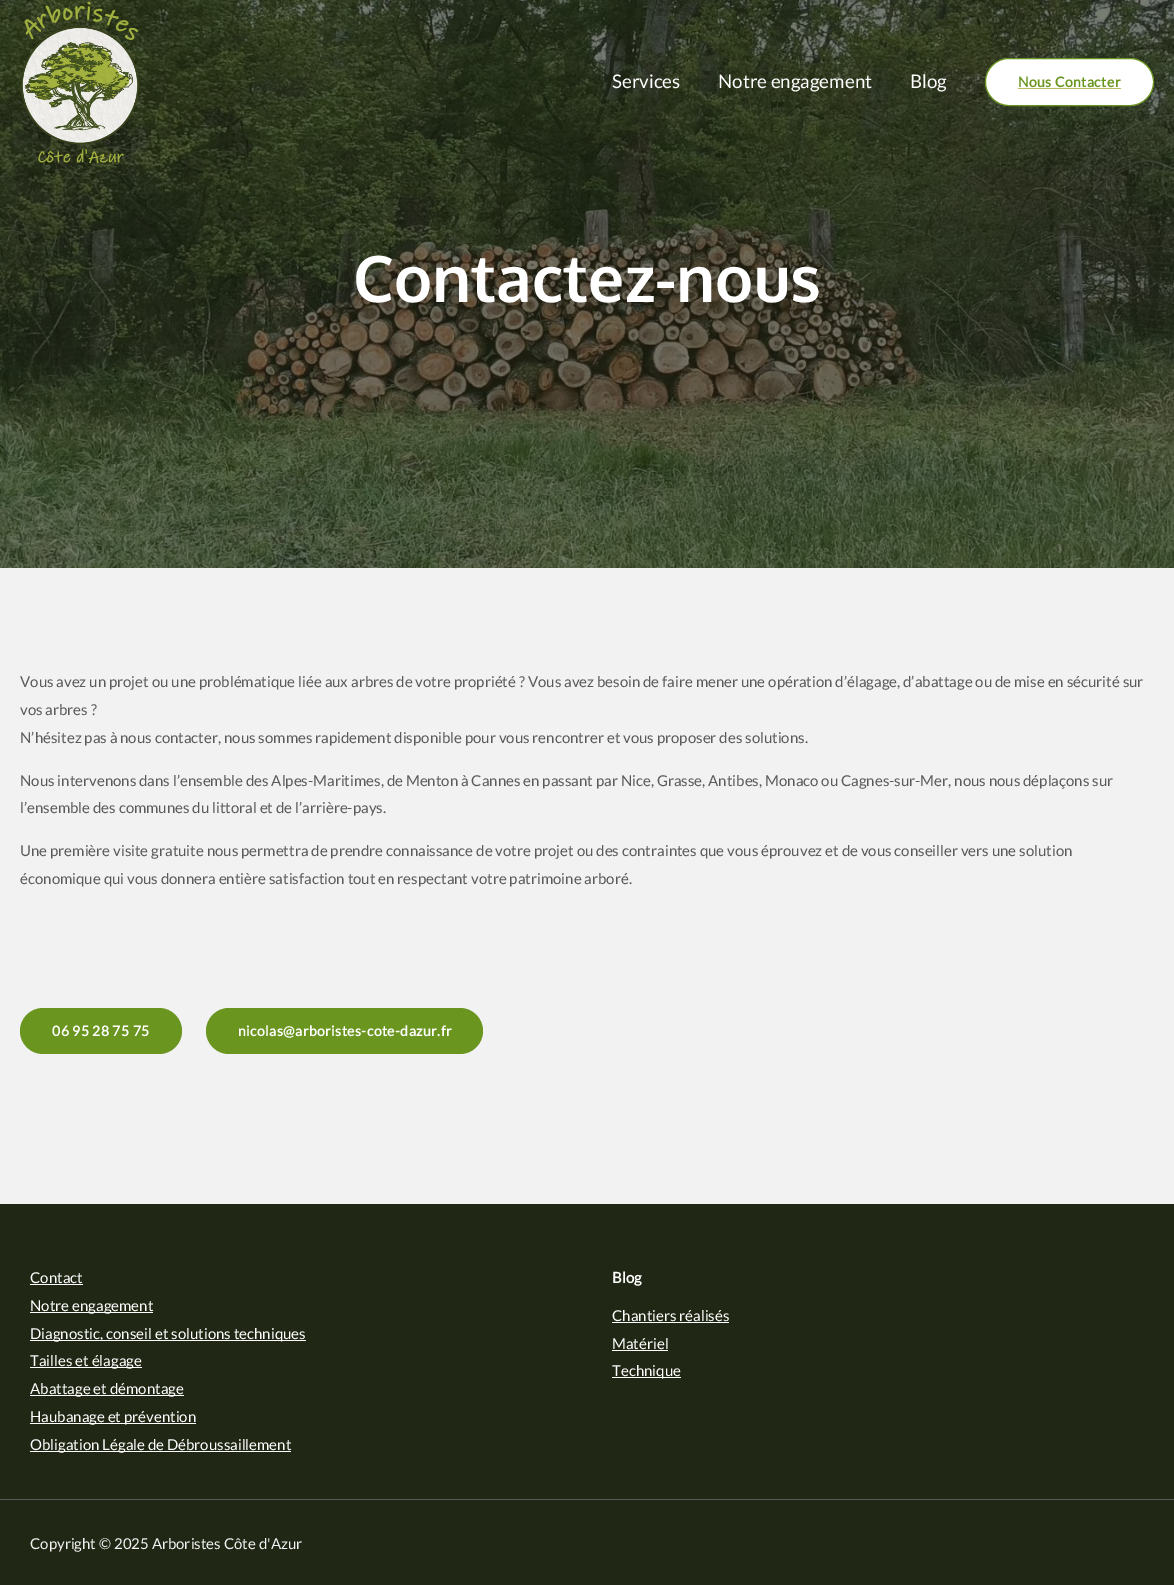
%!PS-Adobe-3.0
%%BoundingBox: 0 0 1174 1585
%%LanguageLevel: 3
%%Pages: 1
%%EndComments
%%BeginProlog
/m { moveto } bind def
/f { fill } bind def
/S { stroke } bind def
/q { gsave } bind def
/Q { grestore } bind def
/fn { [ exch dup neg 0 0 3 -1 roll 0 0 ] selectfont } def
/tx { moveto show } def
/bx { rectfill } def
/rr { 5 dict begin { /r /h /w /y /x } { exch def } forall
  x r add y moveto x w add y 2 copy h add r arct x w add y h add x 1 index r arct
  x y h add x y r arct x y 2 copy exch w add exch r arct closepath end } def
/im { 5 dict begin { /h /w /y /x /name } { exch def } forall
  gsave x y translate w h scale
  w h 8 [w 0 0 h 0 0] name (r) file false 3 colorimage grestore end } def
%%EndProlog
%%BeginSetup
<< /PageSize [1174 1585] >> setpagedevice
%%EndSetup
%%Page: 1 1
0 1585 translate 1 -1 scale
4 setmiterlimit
0.949 setgray
0 0 1174 1585 bx
(image1.raw) 0 0 1174 568 im
(image0.raw) 21 1 118 162 im
/Lato-Regular 18.75 fn
1 setgray
(Services) 612 88 tx
(Notre engagement) 718 88 tx
(Blog) 910 88 tx
985.5 58.5 168 47 23.5 rr q f Q
0.416 0.588 0.122 setrgbcolor
S
/Lato-Bold 14 fn
1018 87 m 0.4 0 (Nous Contacter) ashow
0.737 0.729 0.388 setrgbcolor
1018 88 103 1 bx
/Oxygen-Bold 64 fn
1 setgray
(Contactez-nous) 353 302 tx
/Lato-Regular 15 fn
0.353 setgray
(Vous avez un projet ou une problématique liée aux arbres de votre propriété ? Vous avez besoin de faire mener une opération d’élagage, d’abattage ou de mise en sécurité sur) 20 687 tx
(vos arbres ?) 20 715 tx
(N’hésitez pas à nous contacter, nous sommes rapidement disponible pour vous rencontrer et vous proposer des solutions.) 20 743 tx
(Nous intervenons dans l’ensemble des Alpes-Maritimes, de Menton à Cannes en passant par Nice, Grasse, Antibes, Monaco ou Cagnes-sur-Mer, nous nous déplaçons sur) 20 786 tx
(l’ensemble des communes du littoral et de l’arrière-pays.) 20 813 tx
(Une première visite gratuite nous permettra de prendre connaissance de votre projet ou des contraintes que vous éprouvez et de vous conseiller vers une solution) 20 856 tx
(économique qui vous donnera entière satisfaction tout en respectant votre patrimoine arboré.) 20 884 tx
0.416 0.588 0.122 setrgbcolor
20 1008 162 46 23 rr f
/Lato-Bold 14 fn
1 setgray
52 1036 m 0.4 0 (06 95 28 75 75) ashow
0.416 0.588 0.122 setrgbcolor
206 1008 277 46 23 rr f
1 setgray
238 1036 m 0.4 0 (nicolas@arboristes-cote-dazur.fr) ashow
0.125 0.153 0.078 setrgbcolor
0 1204 1174 381 bx
/Lato-Regular 15 fn
1 setgray
(Contact) 30 1283 tx
30 1284 53 1 bx
30 1312 123 1 bx
(Notre engagement) 30 1311 tx
30 1340 276 1 bx
(Diagnostic, conseil et solutions techniques) 30 1339 tx
30 1367 112 1 bx
(Tailles et élagage) 30 1366 tx
30 1395 154 1 bx
(Abattage et démontage) 30 1394 tx
30 1423 166 1 bx
(Haubanage et prévention) 30 1422 tx
30 1451 261 1 bx
(Obligation Légale de Débroussaillement) 30 1450 tx
/Lato-Bold 15 fn
(Blog) 612 1283 tx
/Lato-Regular 15 fn
(Chantiers réalisés) 612 1321 tx
612 1322 117 1 bx
(Matériel) 612 1349 tx
612 1350 56 1 bx
612 1377 69 1 bx
(Technique) 612 1376 tx
0.353 setgray
0 1499 1174 1 bx
0.949 setgray
(Copyright © 2025 Arboristes Côte d'Azur) 30 1549 tx
showpage
%%EOF
